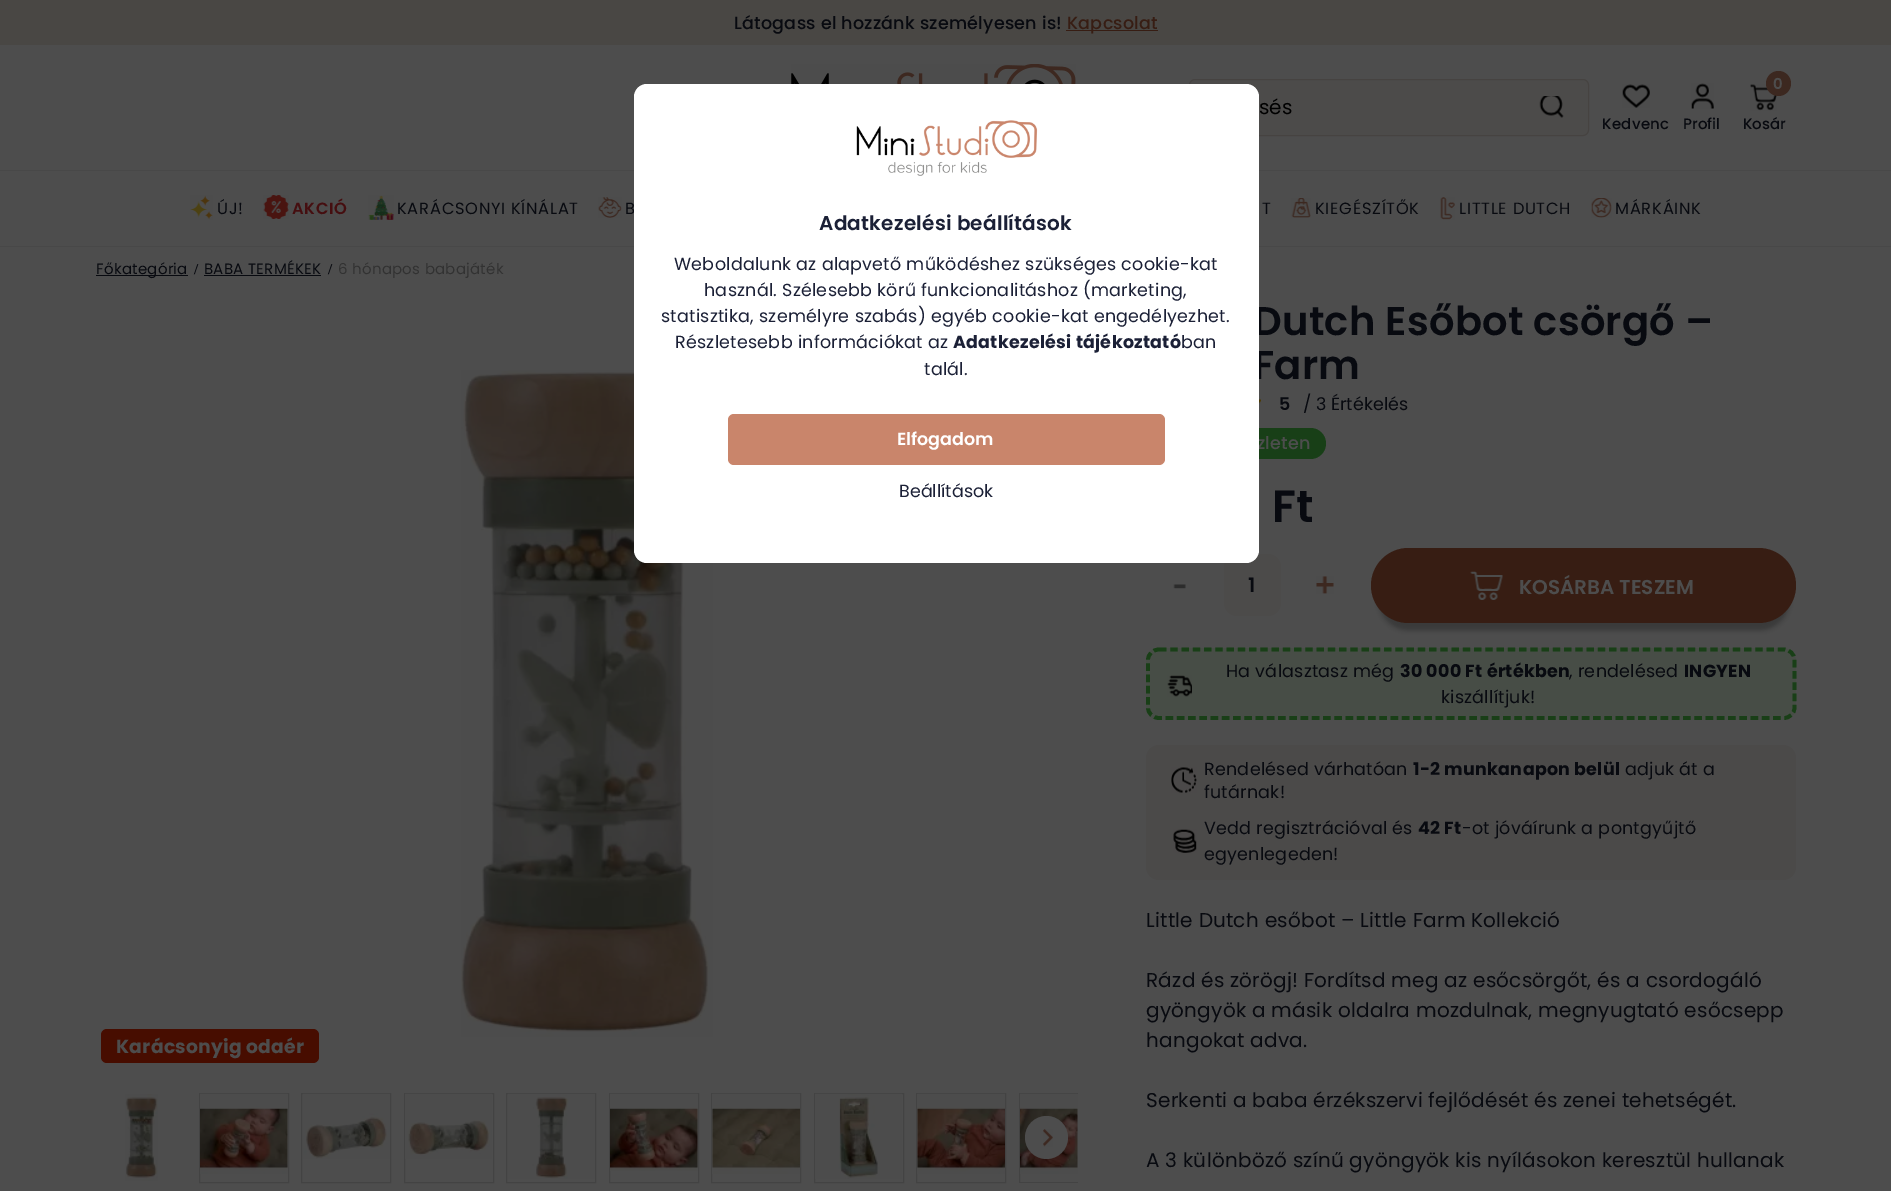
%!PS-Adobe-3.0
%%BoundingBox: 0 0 1891 1191
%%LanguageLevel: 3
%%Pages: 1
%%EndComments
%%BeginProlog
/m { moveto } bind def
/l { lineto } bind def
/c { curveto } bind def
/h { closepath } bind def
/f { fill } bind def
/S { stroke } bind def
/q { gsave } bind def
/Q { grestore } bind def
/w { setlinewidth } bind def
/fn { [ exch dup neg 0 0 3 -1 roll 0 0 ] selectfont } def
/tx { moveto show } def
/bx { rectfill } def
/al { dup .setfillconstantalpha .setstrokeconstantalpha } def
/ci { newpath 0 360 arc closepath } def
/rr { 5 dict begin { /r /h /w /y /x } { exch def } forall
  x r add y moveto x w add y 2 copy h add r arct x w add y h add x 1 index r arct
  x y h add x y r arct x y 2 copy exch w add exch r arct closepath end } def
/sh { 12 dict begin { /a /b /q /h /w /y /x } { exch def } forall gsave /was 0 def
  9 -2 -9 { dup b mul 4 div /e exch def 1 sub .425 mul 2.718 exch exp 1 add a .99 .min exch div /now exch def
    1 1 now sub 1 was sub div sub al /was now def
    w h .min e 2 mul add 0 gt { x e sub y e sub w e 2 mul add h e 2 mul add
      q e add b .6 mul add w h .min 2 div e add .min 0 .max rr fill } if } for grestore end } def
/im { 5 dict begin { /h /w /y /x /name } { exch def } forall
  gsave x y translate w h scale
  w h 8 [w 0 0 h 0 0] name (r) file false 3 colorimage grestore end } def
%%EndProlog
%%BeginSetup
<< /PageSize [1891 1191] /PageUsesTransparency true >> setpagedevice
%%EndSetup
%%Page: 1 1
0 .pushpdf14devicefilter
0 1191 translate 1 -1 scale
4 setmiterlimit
0.302 setgray
0 0 1891 1191 bx
0.286 0.278 0.267 setrgbcolor
0 0 1891 45 bx
/Poppins-Medium 17.5 fn
0.031 0.039 0.063 setrgbcolor
734 29 m 0.25 0 (Látogass el hozzánk személyesen is!) ashow
0.216 0.114 0.075 setrgbcolor
1066 30 92 1 bx
1067 29 m 0.25 0 (Kapcsolat) ashow
0.282 setgray
0 246 1891 1 bx
0 170 1891 1 bx
(image0.raw) 791 64 285 20 im
0.298 0.294 0.29 setrgbcolor
1189.5 79.5 399 56 5.5 rr q f Q
0.275 0.263 0.255 setrgbcolor
S
/Poppins-Regular 20 fn
0 setgray
(sés) 1259 114 tx
(image1.raw) 1539 96 25 22 im
(image2.raw) 1750 84 27 27 im
0.235 0.157 0.125 setrgbcolor
1778.5 83.5 12.5 ci f
/Poppins-SemiBold 15 fn
0.302 setgray
(0) 1773 89 tx
/Poppins-Medium 15 fn
0.031 0.039 0.063 setrgbcolor
(Kosár) 1743 129 tx
(image3.raw) 1622 84 28 24 im
1602 129 m 0.25 0 (Kedvenc) ashow
(image4.raw) 1691 83 23 26 im
(Profil) 1683 129 tx
(image5.raw) 190 195 23 25 im
/Poppins-Regular 16.25 fn
217 214 m 0.75 0 (ÚJ!) ashow
(image6.raw) 263 195 26 24 im
/Poppins-SemiBold 16.25 fn
0.271 0.055 0.063 setrgbcolor
292 214 m 0.75 0 (AKCIÓ) ashow
(image7.raw) 368 195 26 25 im
/Poppins-Regular 16.25 fn
0.031 0.039 0.063 setrgbcolor
397 214 m 0.75 0 (KARÁCSONYI KÍNÁLAT) ashow
(image8.raw) 598 197 24 21 im
625 214 m 0.75 0 (B) ashow
1262 214 m 0.75 0 (T) ashow
(image9.raw) 1291 198 20 20 im
1315 214 m 0.75 0 (KIEGÉSZÍTŐK) ashow
(image10.raw) 1440 197 15 23 im
1459 214 m 0.75 0 (LITTLE DUTCH) ashow
(image11.raw) 1591 198 21 20 im
1615 214 m 0.75 0 (MÁRKÁINK) ashow
96 275 92 1 bx
/Poppins-Regular 15 fn
96 274 m 0.25 0 (Főkategória) ashow
/LiberationSerif-Bold 15 fn
194 274 m 0.25 0 (/) ashow
/Poppins-Regular 15 fn
204 274 m 0.25 0 (BABA TERMÉKEK) ashow
204 275 117 1 bx
/LiberationSerif-Bold 15 fn
328 274 m 0.25 0 (/) ashow
/Poppins-Regular 15 fn
0.196 setgray
338 274 m 0.25 0 (6 hónapos babajáték) ashow
(image12.raw) 461 370 252 667 im
0.278 0.051 0 setrgbcolor
101 1029 218 34 6 rr f
/Poppins-Bold 18.75 fn
0.302 setgray
116 1053 m 0.25 0 (Karácsonyig odaér) ashow
(image13.raw) 125 1094 33 87 im
0.263 setgray
199.5 1093.5 89 89 rectstroke
(image14.raw) 200 1093 88 81 im
301.5 1093.5 89 89 rectstroke
(image15.raw) 303 1093 87 66 im
404.5 1093.5 89 89 rectstroke
(image16.raw) 405 1093 87 66 im
506.5 1093.5 89 89 rectstroke
(image17.raw) 508 1093 87 86 im
609.5 1093.5 89 89 rectstroke
(image18.raw) 610 1093 88 78 im
711.5 1093.5 89 89 rectstroke
(image19.raw) 712 1093 88 81 im
814.5 1093.5 89 89 rectstroke
(image20.raw) 815 1093 87 86 im
916.5 1093.5 89 89 rectstroke
(image21.raw) 917 1093 88 81 im
q
96 1093 982 90 rectclip
1019.5 1093.5 89 89 rectstroke
Q
(image22.raw) 1020 1093 58 81 im
0.302 setgray
1046.5 1137.5 21.5 ci f
(image23.raw) 1043 1129 10 18 im
/Poppins-SemiBold 40 fn
0.031 0.039 0.063 setrgbcolor
1253 335 m 0.25 0 (Dutch Esőbot csörgő –) ashow
1253 379 m 0.25 0 (Farm) ashow
(image24.raw) 1259 398 2 6 im
/Poppins-SemiBold 17.5 fn
1279 410 m 0.25 0 (5) ashow
/Poppins-Regular 17.5 fn
(/ 3 Értékelés) 1303 410 tx
0.094 0.247 0.09 setrgbcolor
1146 428 180 31 15.5 rr f
/Poppins-Medium 17.5 fn
0.302 setgray
1257 449 m 0.25 0 (zleten) ashow
/Poppins-SemiBold 45 fn
0.031 0.039 0.063 setrgbcolor
1272 522 m 0.25 0 (Ft) ashow
(image25.raw) 1173 584 13 5 im
0.298 0.294 0.29 setrgbcolor
1224 554 57 62 13 rr f
/Poppins-SemiBold 20 fn
0.031 0.039 0.063 setrgbcolor
(1) 1248 592 tx
(image26.raw) 1316 576 18 18 im
0.184 setgray
1379 570 410 60 30 2.5 0.63 sh
0.216 0.114 0.075 setrgbcolor
1371 548 425 75 37.5 rr f
(image27.raw) 1470 571 33 29 im
0.302 setgray
(KOSÁRBA TESZEM) 1519 594 tx
0.278 0.302 0.275 setrgbcolor
1146 648 650 72 13 rr f
0.098 0.247 0.09 setrgbcolor
3.8 w
[7.5 3.75] 0 setdash
1159 649.5 m 1784 649.5 l 1789.5 649.5 1794.5 654 1794.5 660 c 1794.5 707.5 l 1794.5 713.5 1789.5 718 1784 718 c 1159 718 l 1153 718 1148 713.5 1148 707.5 c 1148 660 l 1148 654 1153 649.5 1159 649.5 c h S
(image28.raw) 1167 675 25 22 im
/Poppins-Regular 17.5 fn
0.031 0.039 0.063 setrgbcolor
1226 677 m 0.25 0 (Ha választasz még) ashow
/Poppins-Bold 17.5 fn
1400 677 m 0.25 0 (30 000 Ft értékben) ashow
/Poppins-Regular 17.5 fn
1569 677 m 0.25 0 (, rendelésed) ashow
/Poppins-Bold 17.5 fn
1684 677 m 0.25 0 (INGYEN) ashow
/Poppins-Regular 17.5 fn
1441 703 m 0.25 0 (kiszállítjuk!) ashow
0.294 0.29 0.286 setrgbcolor
1146 745 650 135 13 rr f
(image29.raw) 1171 767 26 26 im
0.031 0.039 0.063 setrgbcolor
1204 775 m 0.25 0 (Rendelésed várhatóan) ashow
/Poppins-Bold 17.5 fn
1413 775 m 0.25 0 (1-2 munkanapon belül) ashow
/Poppins-Regular 17.5 fn
1625 775 m 0.25 0 (adjuk át a) ashow
1204 798 m 0.25 0 (futárnak!) ashow
(image30.raw) 1173 829 24 24 im
1204 834 m 0.25 0 (Vedd regisztrációval és) ashow
/Poppins-Bold 17.5 fn
1418 834 m 0.25 0 (42 Ft) ashow
/Poppins-Regular 17.5 fn
1462 834 m 0.25 0 (-ot jóváírunk a pontgyűjtő) ashow
1204 860 m 0.25 0 (egyenlegeden!) ashow
/Poppins-Regular 20 fn
1146 927 m 0.25 0 (Little Dutch esőbot – Little Farm Kollekció) ashow
1146 987 m 0.25 0 (Rázd és zörögj! Fordítsd meg az esőcsörgőt, és a csordogáló) ashow
1146 1017 m 0.25 0 (gyöngyök a másik oldalra mozdulnak, megnyugtató esőcsepp) ashow
1146 1047 m 0.25 0 (hangokat adva.) ashow
1146 1107 m 0.25 0 (Serkenti a baba érzékszervi fejlődését és zenei tehetségét.) ashow
1146 1167 m 0.25 0 (A 3 különböző színű gyöngyök kis nyílásokon keresztül hullanak) ashow
1 setgray
634 84 625 479 13 rr f
(image31.raw) 856 120 182 56 im
/Poppins-SemiBold 20 fn
0.106 0.125 0.212 setrgbcolor
819 230 m 0.25 0 (Adatkezelési beállítások) ashow
/Poppins-Regular 17.5 fn
674 270 m 0.25 0 (Weboldalunk az alapvető működéshez szükséges cookie-kat) ashow
704 296 m 0.25 0 (használ. Szélesebb körű funkcionalitáshoz \(marketing,) ashow
661 322 m 0.25 0 (statisztika, személyre szabás\) egyéb cookie-kat engedélyezhet.) ashow
675 348 m 0.25 0 (Részletesebb információkat az) ashow
/Poppins-Bold 17.5 fn
953 348 m 0.25 0 (Adatkezelési tájékoztató) ashow
/Poppins-Regular 17.5 fn
1181 348 m 0.25 0 (ban) ashow
924 375 m 0.25 0 (talál.) ashow
0.788 0.522 0.42 setrgbcolor
728 414 437 51 6 rr f
/Poppins-SemiBold 17.5 fn
1 setgray
(Elfogadom) 897 445 tx
/Poppins-Regular 17.5 fn
0.106 0.125 0.212 setrgbcolor
(Beállítások) 899 497 tx
.poppdf14devicefilter showpage
%%EOF
